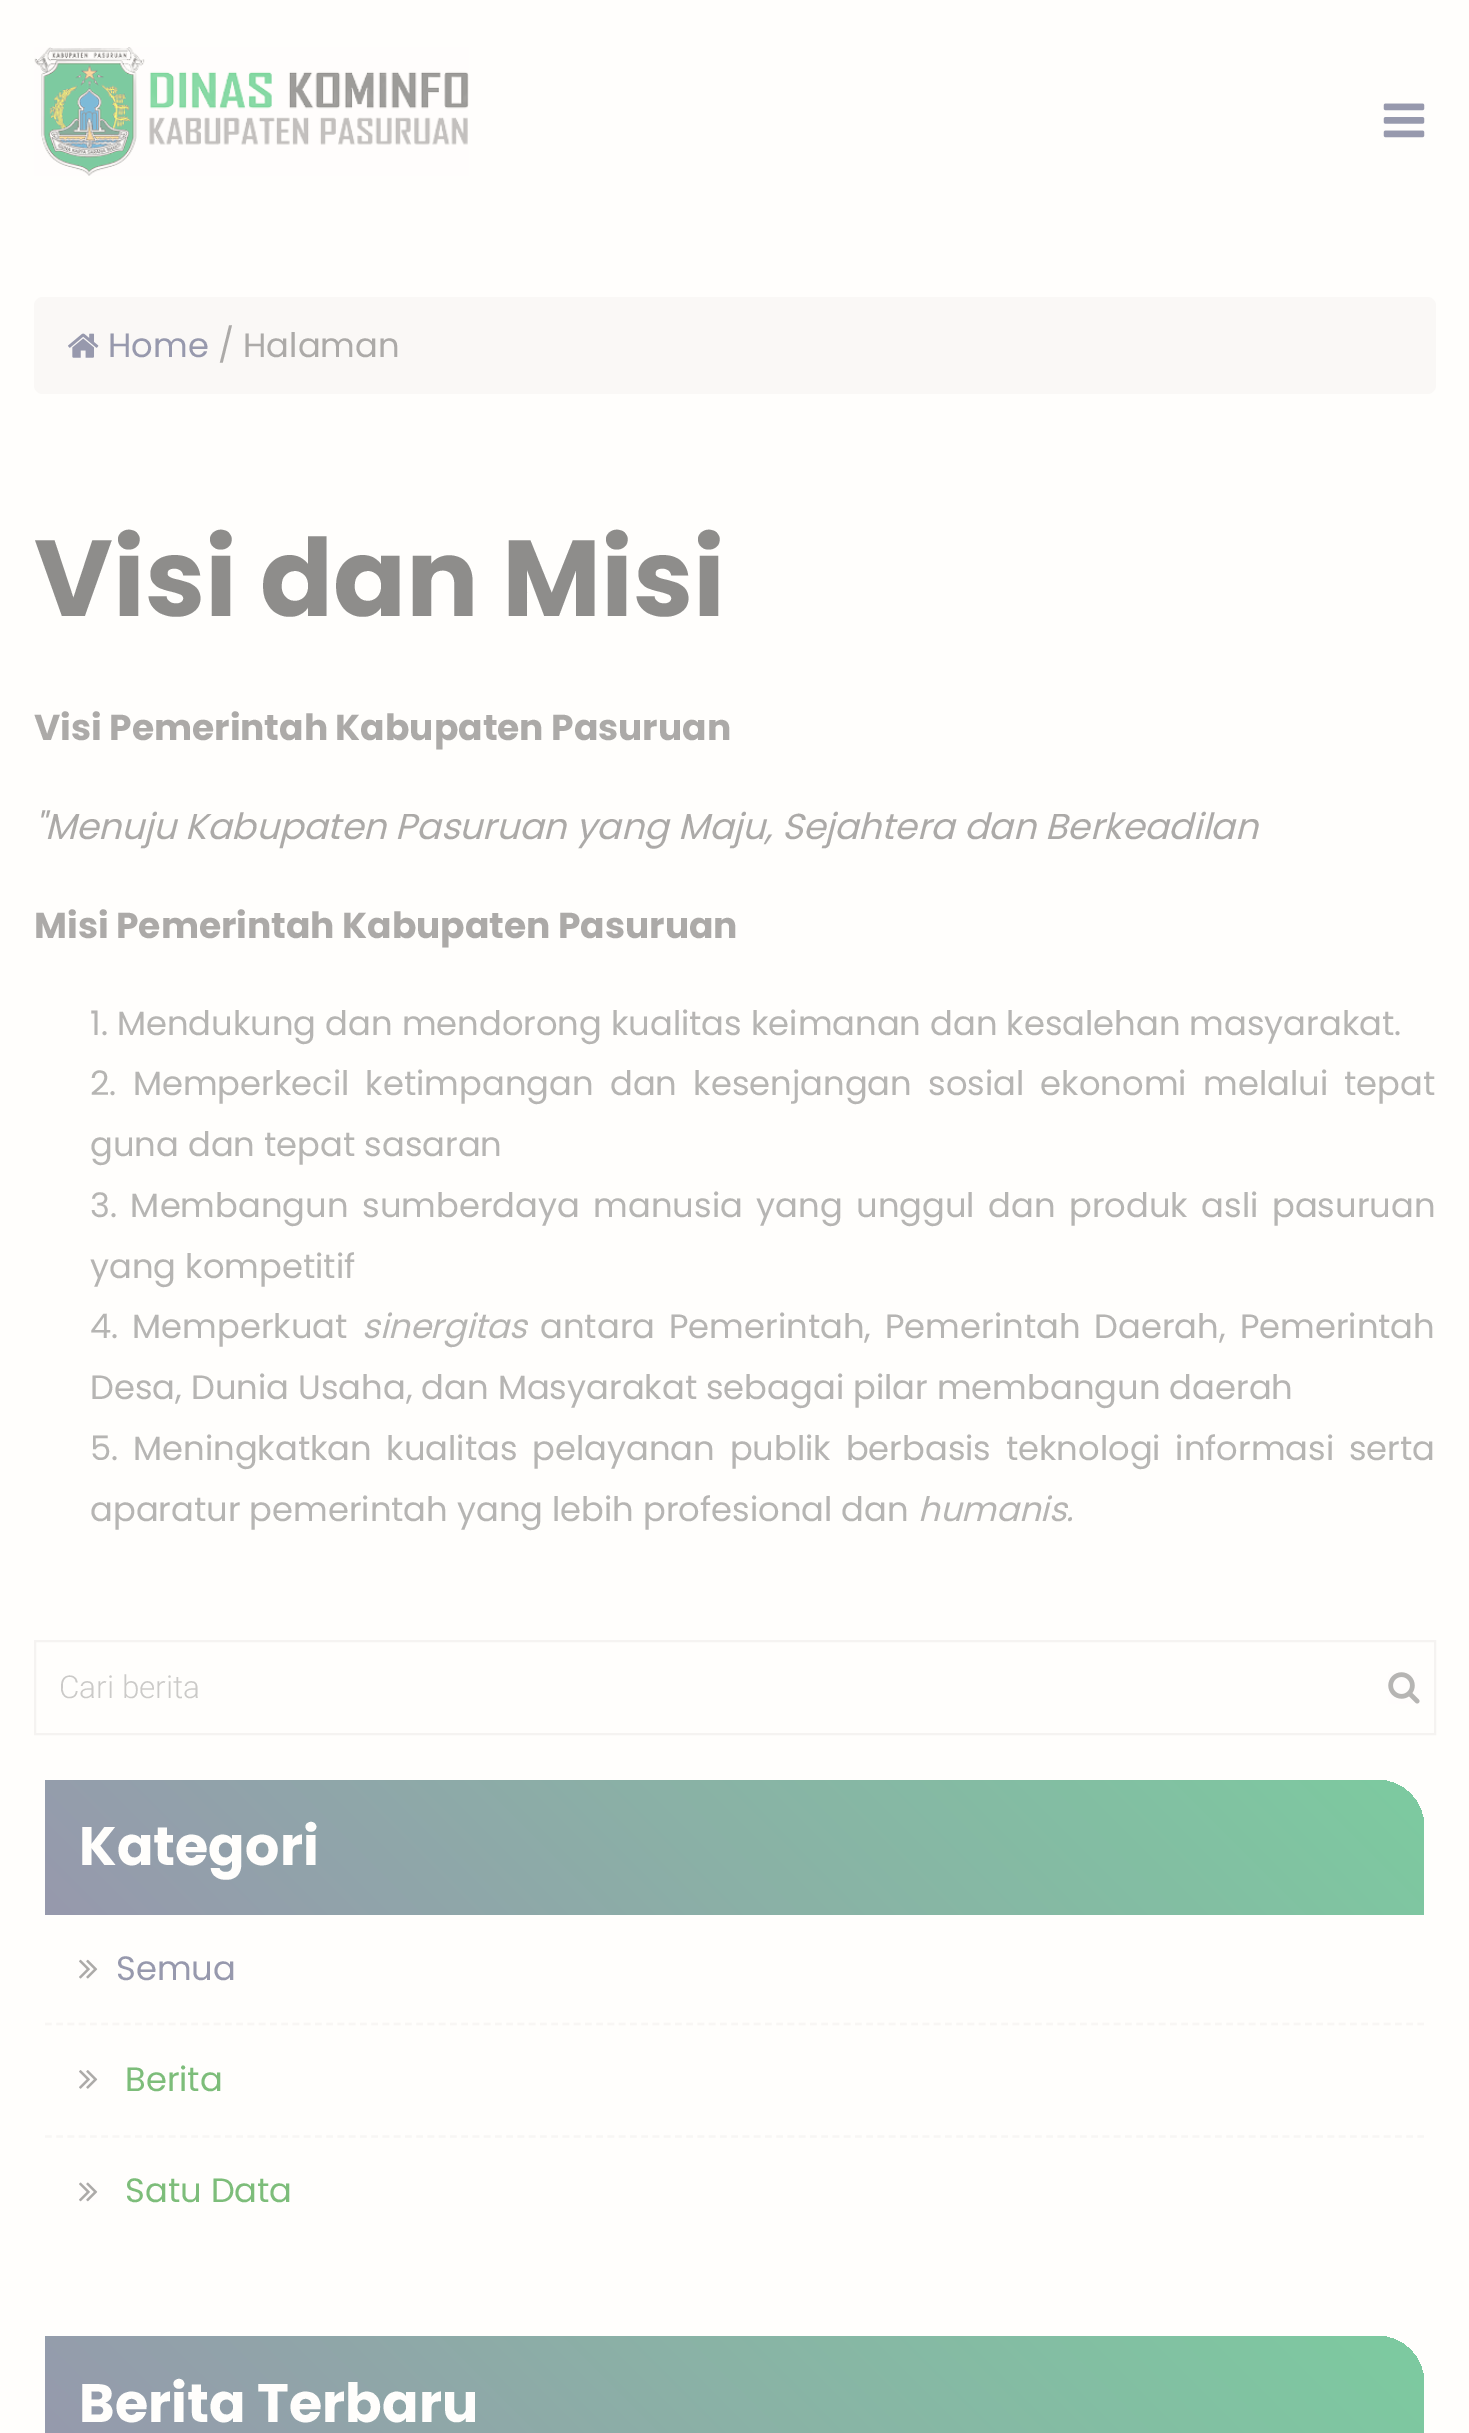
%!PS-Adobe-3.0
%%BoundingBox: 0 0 1469 2433
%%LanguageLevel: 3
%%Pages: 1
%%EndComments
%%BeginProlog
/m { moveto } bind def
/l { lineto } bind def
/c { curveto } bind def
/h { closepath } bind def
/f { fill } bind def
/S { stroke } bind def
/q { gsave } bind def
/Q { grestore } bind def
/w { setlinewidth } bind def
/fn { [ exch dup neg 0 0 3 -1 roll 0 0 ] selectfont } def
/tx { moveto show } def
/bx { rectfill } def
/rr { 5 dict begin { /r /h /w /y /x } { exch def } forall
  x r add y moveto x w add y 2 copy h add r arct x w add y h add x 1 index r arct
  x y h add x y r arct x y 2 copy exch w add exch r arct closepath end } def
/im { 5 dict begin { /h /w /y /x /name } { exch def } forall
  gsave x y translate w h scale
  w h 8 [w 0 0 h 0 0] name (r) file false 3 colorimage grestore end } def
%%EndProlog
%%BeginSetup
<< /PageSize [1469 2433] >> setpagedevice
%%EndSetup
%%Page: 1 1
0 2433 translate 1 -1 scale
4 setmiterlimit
1 0.996 0.988 setrgbcolor
0 0 1469 2433 bx
(image0.raw) 34 47 435 129 im
(image1.raw) 1383 103 42 35 im
0.98 0.973 0.965 setrgbcolor
34 297 1402 97 9 rr f
(image2.raw) 68 333 31 25 im
/Poppins-Regular 33.75 fn
0.592 0.6 0.678 setrgbcolor
(Home) 108 357 tx
0.675 0.667 0.659 setrgbcolor
(/ Halaman) 218 357 tx
/Poppins-Bold 108 fn
0.557 0.553 0.545 setrgbcolor
(Visi dan Misi) 34 616 tx
/Poppins-Bold 36 fn
0.675 0.667 0.659 setrgbcolor
(Visi Pemerintah Kabupaten Pasuruan) 34 740 tx
/Poppins-Italic 36 fn
("Menuju Kabupaten Pasuruan yang Maju, Sejahtera dan Berkeadilan) 34 839 tx
/Poppins-Bold 36 fn
(Misi Pemerintah Kabupaten Pasuruan) 34 938 tx
/Poppins-Regular 33.75 fn
0.714 0.71 0.702 setrgbcolor
(1. Mendukung dan mendorong kualitas keimanan dan kesalehan masyarakat.) 90 1035 tx
90 1095 m 7.25 0 32 (2. Memperkecil ketimpangan dan kesenjangan sosial ekonomi melalui tepat) widthshow
(guna dan tepat sasaran) 90 1156 tx
90 1217 m 4.5 0 32 (3. Membangun sumberdaya manusia yang unggul dan produk asli pasuruan) widthshow
(yang kompetitif) 90 1278 tx
90 1338 m 5 0 32 (4. Memperkuat) widthshow
/Poppins-Italic 33.75 fn
(sinergitas) 362 1338 tx
/Poppins-Regular 33.75 fn
540 1338 m 5 0 32 (antara Pemerintah, Pemerintah Daerah, Pemerintah) widthshow
(Desa, Dunia Usaha, dan Masyarakat sebagai pilar membangun daerah) 90 1399 tx
90 1460 m 5.75 0 32 (5. Meningkatkan kualitas pelayanan publik berbasis teknologi informasi serta) widthshow
(aparatur pemerintah yang lebih profesional dan) 90 1521 tx
/Poppins-Italic 33.75 fn
(humanis.) 918 1521 tx
0.961 0.953 0.945 setrgbcolor
2 w
35 1641 1400 93 rectstroke
/Roboto-Light 31.5 fn
0.796 0.792 0.784 setrgbcolor
(Cari berita) 59 1698 tx
(image3.raw) 1388 1672 32 32 im
q 45 1780 m 1377 1780 l 1403 1780 1424 1801 1424 1827 c 1424 1915 l 45 1915 l h clip newpath
<< /ShadingType 2 /ColorSpace /DeviceRGB /Coords [356 2226 1113 1469] /Extend [true true] /Function << /FunctionType 2 /Domain [0 1] /C0 [0.592 0.6 0.678] /C1 [0.49 0.796 0.627] /N 1 >> >> shfill Q
/Poppins-Bold 54 fn
1 0.996 0.988 setrgbcolor
(Kategori) 79 1865 tx
0.973 0.965 0.957 setrgbcolor
2.2 w
[6.75 4.5] 0 setdash
45 2024 m 1424 2024 l S
(image4.raw) 79 1959 19 20 im
/Poppins-Regular 33.75 fn
0.592 0.6 0.678 setrgbcolor
(Semua) 116 1980 tx
0.973 0.965 0.957 setrgbcolor
45 2136.5 m 1424 2136.5 l S
(image5.raw) 79 2070 19 19 im
0.49 0.741 0.478 setrgbcolor
(Berita) 125 2091 tx
(image6.raw) 79 2182 19 20 im
(Satu Data) 125 2202 tx
q 45 2336 m 1377 2336 l 1403 2336 1424 2357 1424 2383 c 1424 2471 l 45 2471 l h clip newpath
<< /ShadingType 2 /ColorSpace /DeviceRGB /Coords [356 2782 1113 2024] /Extend [true true] /Function << /FunctionType 2 /Domain [0 1] /C0 [0.592 0.6 0.678] /C1 [0.49 0.796 0.627] /N 1 >> >> shfill Q
/Poppins-Bold 54 fn
1 0.996 0.988 setrgbcolor
(Berita Terbaru) 79 2422 tx
showpage
%%EOF
